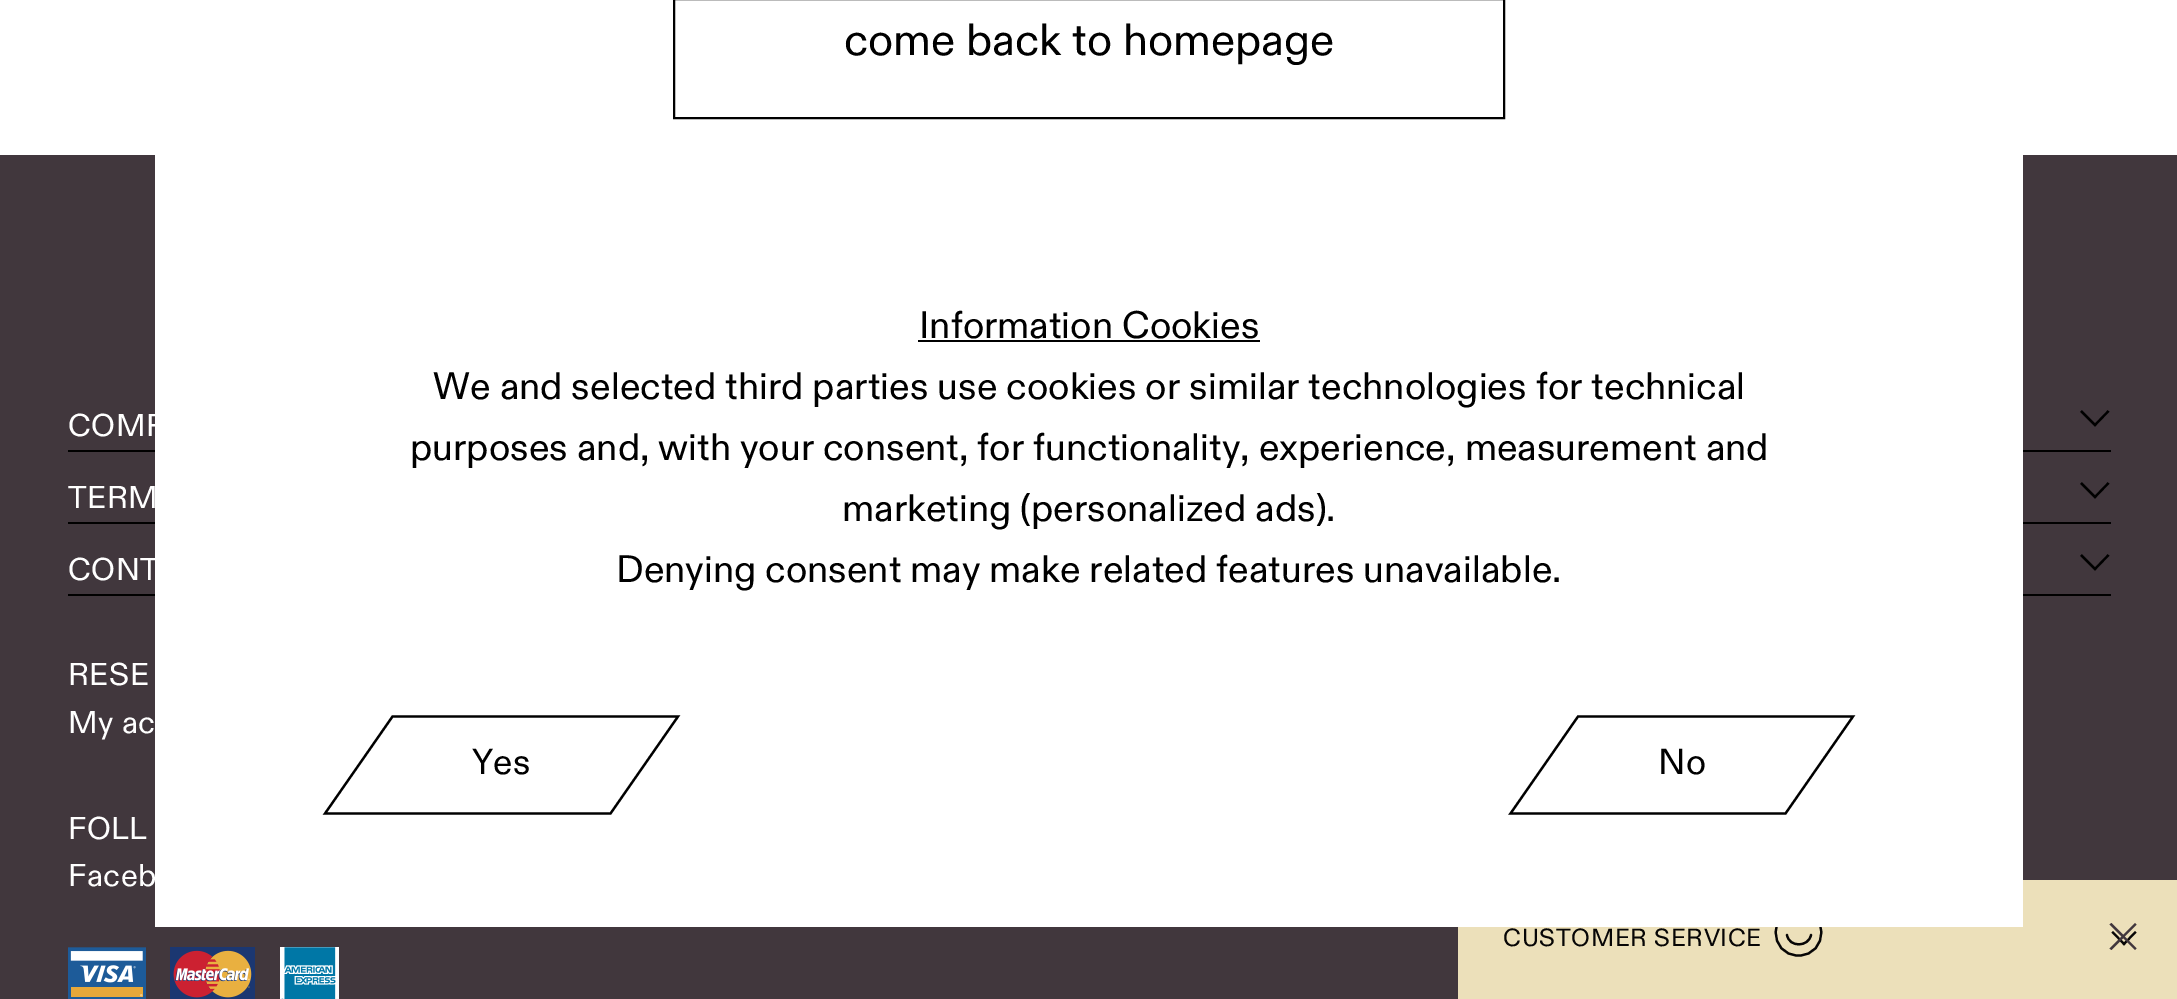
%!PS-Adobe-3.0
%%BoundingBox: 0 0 2177 999
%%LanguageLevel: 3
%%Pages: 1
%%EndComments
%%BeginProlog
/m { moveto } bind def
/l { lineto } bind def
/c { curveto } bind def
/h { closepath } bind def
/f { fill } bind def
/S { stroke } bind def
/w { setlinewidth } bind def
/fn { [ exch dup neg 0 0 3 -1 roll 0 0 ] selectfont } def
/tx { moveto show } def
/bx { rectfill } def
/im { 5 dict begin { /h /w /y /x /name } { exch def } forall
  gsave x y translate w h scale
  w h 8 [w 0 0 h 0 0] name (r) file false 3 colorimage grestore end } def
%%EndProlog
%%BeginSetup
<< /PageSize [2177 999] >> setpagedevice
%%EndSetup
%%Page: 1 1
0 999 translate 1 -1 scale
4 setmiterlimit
1 setgray
0 0 2177 999 bx
0 setgray
2 w
674 -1 830 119 rectstroke
/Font-Regular 45 fn
(come back to homepage) 844 55 tx
0.255 0.216 0.239 setrgbcolor
0 155 2177 844 bx
0 setgray
68 450 2043 2 bx
/Font-Regular 31.5 fn
1 setgray
68 436 m 0.5 0 (COMP) ashow
0 setgray
2.2 w
2081 411 m 2095 425 l 2108.5 411 l S
68 522 2043 2 bx
1 setgray
68 508 m 0.5 0 (TERM) ashow
0 setgray
2081 483 m 2095 497 l 2108.5 483 l S
68 594 2043 2 bx
1 setgray
68 580 m 0.5 0 (CONT) ashow
0 setgray
2081 555 m 2095 569 l 2108.5 555 l S
1 setgray
68 685 m 0.5 0 (RESE) ashow
68 733 m 0.5 0 (My ac) ashow
68 839 m 0.5 0 (FOLL) ashow
68 886 m 0.5 0 (Faceb) ashow
(image0.raw) 68 947 78 52 im
(image1.raw) 170 947 85 52 im
(image2.raw) 280 947 59 52 im
0.925 0.878 0.729 setrgbcolor
1458 880 719 119 bx
/Font-Regular 24.75 fn
0.027 0.024 0.024 setrgbcolor
1503 946 m 0.7 0 (CUSTOMER SERVICE) ashow
1 setlinecap
1 setlinejoin
1811 935 m 1808.5 947.5 1789 947.5 1787 935 c S
0 setlinecap
0 setlinejoin
1798.5 955.5 m 1829 955.5 1829 909 1798.5 909 c 1768 909 1768 955.5 1798.5 955.5 c h S
2135 931 m 2136.5 932.5 l 2124 945.5 l 2122.5 944 l h f
2113 931 m 2125.5 944 l 2124 945.5 l 2111.5 932.5 l h f
0.255 0.216 0.239 setrgbcolor
2111.5 923 m 2136.5 948.5 l 2135 950 l 2109.5 924.5 l h f
2109.5 948.5 m 2135 923 l 2136.5 924.5 l 2111.5 950 l h f
1 setgray
155 155 1868 772 bx
/Font-Regular 38.25 fn
0 setgray
(Information Cookies) 919 338 tx
918 340 342 2 bx
(We and selected third parties use cookies or similar technologies for technical) 433 399 tx
(purposes and, with your consent, for functionality, experience, measurement and) 410 460 tx
(marketing \(personalized ads\).) 842 521 tx
(Denying consent may make related features unavailable.) 616 582 tx
392.5 716.5 m 678 716.5 l 610.5 813.5 l 325 813.5 l h S
/Font-Regular 36 fn
(Yes) 472 774 tx
1578 716.5 m 1853 716.5 l 1785.5 813.5 l 1510.5 813.5 l h S
(No) 1658 774 tx
showpage
%%EOF
